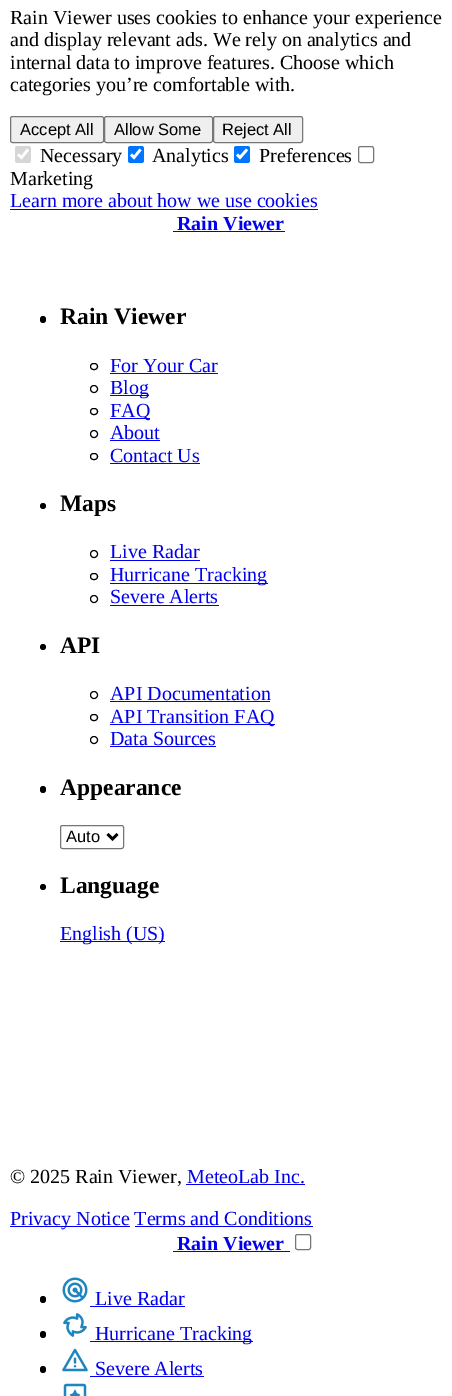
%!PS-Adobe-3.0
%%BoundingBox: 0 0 452 1396
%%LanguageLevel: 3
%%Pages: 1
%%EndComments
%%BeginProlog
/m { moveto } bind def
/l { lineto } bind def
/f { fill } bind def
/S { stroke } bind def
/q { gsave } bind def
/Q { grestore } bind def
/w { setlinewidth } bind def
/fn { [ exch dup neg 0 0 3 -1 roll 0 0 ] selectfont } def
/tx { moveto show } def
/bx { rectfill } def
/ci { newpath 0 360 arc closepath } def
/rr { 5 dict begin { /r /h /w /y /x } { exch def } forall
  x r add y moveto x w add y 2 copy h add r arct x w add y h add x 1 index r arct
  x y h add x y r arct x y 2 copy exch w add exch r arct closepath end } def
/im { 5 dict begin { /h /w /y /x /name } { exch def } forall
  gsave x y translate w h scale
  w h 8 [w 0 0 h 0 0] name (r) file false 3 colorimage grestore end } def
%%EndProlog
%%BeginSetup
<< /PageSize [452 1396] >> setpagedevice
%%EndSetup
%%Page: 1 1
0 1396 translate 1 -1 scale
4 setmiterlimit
1 setgray
0 0 452 1396 bx
/LiberationSerif-Regular 20 fn
0 setgray
(Rain Viewer uses cookies to enhance your experience) 10 24 tx
(and display relevant ads. We rely on analytics and) 10 46 tx
(internal data to improve features. Choose which) 10 69 tx
(categories you’re comfortable with.) 10 91 tx
0.937 setgray
10.5 116.5 93 26 2 rr q f Q
0.463 setgray
S
/LiberationSans-Regular 16.5 fn
0 setgray
(Accept All) 20 135 tx
0.937 setgray
104.5 116.5 108 26 2 rr q f Q
0.463 setgray
S
0 setgray
(Allow Some) 114 135 tx
0.937 setgray
213.5 116.5 89 26 2 rr q f Q
0.463 setgray
S
0 setgray
(Reject All) 222 135 tx
0.839 setgray
15 146 16 17 2.5 rr f
1 setgray
2.6 w
18 154.5 m 21.5 157.5 l 28 149.5 l S
/LiberationSerif-Regular 20 fn
0 setgray
(Necessary) 40 162 tx
0 0.459 1 setrgbcolor
128 146 16 17 2.5 rr f
1 setgray
131 154.5 m 134 157.5 l 140.5 149.5 l S
0 setgray
(Analytics) 152 162 tx
0 0.459 1 setrgbcolor
234 146 16 17 2.5 rr f
1 setgray
237 154.5 m 240 157.5 l 247 149.5 l S
0 setgray
(Preferences) 259 162 tx
0.463 setgray
1 w
358.5 146.5 15 16 2 rr S
0 setgray
(Marketing) 10 185 tx
0 0 0.933 setrgbcolor
(Learn more about how we use cookies) 10 207 tx
10 209 308 1 bx
/LiberationSerif-Bold 20 fn
(Rain Viewer) 177 230 tx
173 231 112 1 bx
0 setgray
40 316 6 7 3 rr f
/LiberationSerif-Bold 23.5 fn
(Rain Viewer) 60 324 tx
90.5 363.5 7 6 3 rr S
/LiberationSerif-Regular 20 fn
0 0 0.933 setrgbcolor
(For Your Car) 110 372 tx
110 373 108 1 bx
0 setgray
94 389 3.5 ci S
0 0 0.933 setrgbcolor
110 395 39 1 bx
(Blog) 110 394 tx
0 setgray
90.5 408.5 7 6 3 rr S
0 0 0.933 setrgbcolor
110 418 40 1 bx
(FAQ) 110 417 tx
0 setgray
94 434 3.5 ci S
0 0 0.933 setrgbcolor
(About) 110 439 tx
110 440 50 1 bx
0 setgray
90.5 453.5 7 6 3 rr S
0 0 0.933 setrgbcolor
(Contact Us) 110 462 tx
110 463 90 1 bx
0 setgray
43 506 3 ci f
/LiberationSerif-Bold 23.5 fn
(Maps) 60 511 tx
94 554 3.5 ci S
/LiberationSerif-Regular 20 fn
0 0 0.933 setrgbcolor
(Live Radar) 110 558 tx
110 560 90 1 bx
0 setgray
90.5 573.5 7 6 3 rr S
0 0 0.933 setrgbcolor
110 583 158 1 bx
(Hurricane Tracking) 110 581 tx
0 setgray
94 599 3.5 ci S
0 0 0.933 setrgbcolor
(Severe Alerts) 110 603 tx
110 605 109 1 bx
0 setgray
43 647 3 ci f
/LiberationSerif-Bold 23.5 fn
(API) 60 653 tx
94 695 3.5 ci S
/LiberationSerif-Regular 20 fn
0 0 0.933 setrgbcolor
(API Documentation) 110 700 tx
110 701 160 1 bx
0 setgray
90.5 714.5 7 6 3 rr S
0 0 0.933 setrgbcolor
110 724 165 1 bx
(API Transition FAQ) 110 723 tx
0 setgray
94 740 3.5 ci S
0 0 0.933 setrgbcolor
(Data Sources) 110 745 tx
110 746 106 1 bx
0 setgray
40 786 6 7 3 rr f
/LiberationSerif-Bold 23.5 fn
(Appearance) 60 795 tx
0.463 setgray
60.5 825.5 63 23 2 rr S
0 setgray
2.5 w
107.5 834 m 112.5 839 l 117.5 834 l S
/LiberationSans-Regular 16.5 fn
(Auto) 66 842 tx
43 887 3 ci f
/LiberationSerif-Bold 23.5 fn
(Language) 60 893 tx
0 0 0.933 setrgbcolor
60 941 105 1 bx
/LiberationSerif-Regular 20 fn
(English \(US\)) 60 940 tx
0 setgray
(© 2025 Rain Viewer,) 10 1183 tx
0 0 0.933 setrgbcolor
(MeteoLab Inc.) 187 1183 tx
186 1184 119 1 bx
10 1226 120 1 bx
(Privacy Notice Terms and Conditions) 10 1225 tx
135 1226 178 1 bx
/LiberationSerif-Bold 20 fn
(Rain Viewer) 177 1250 tx
173 1251 117 1 bx
0.463 setgray
1 w
295.5 1234.5 15 15 2 rr S
0 setgray
40 1296 6 7 3 rr f
(image0.raw) 62 1277 26 26 im
/LiberationSerif-Regular 20 fn
0 0 0.933 setrgbcolor
(Live Radar) 95 1305 tx
90 1306 95 1 bx
0 setgray
40 1331 6 7 3 rr f
(image1.raw) 63 1313 24 24 im
0 0 0.933 setrgbcolor
90 1341 163 1 bx
(Hurricane Tracking) 95 1340 tx
0 setgray
40 1366 6 7 3 rr f
(image2.raw) 62 1348 26 24 im
0 0 0.933 setrgbcolor
(Severe Alerts) 95 1375 tx
90 1376 114 1 bx
(image3.raw) 63 1383 24 13 im
showpage
%%EOF
